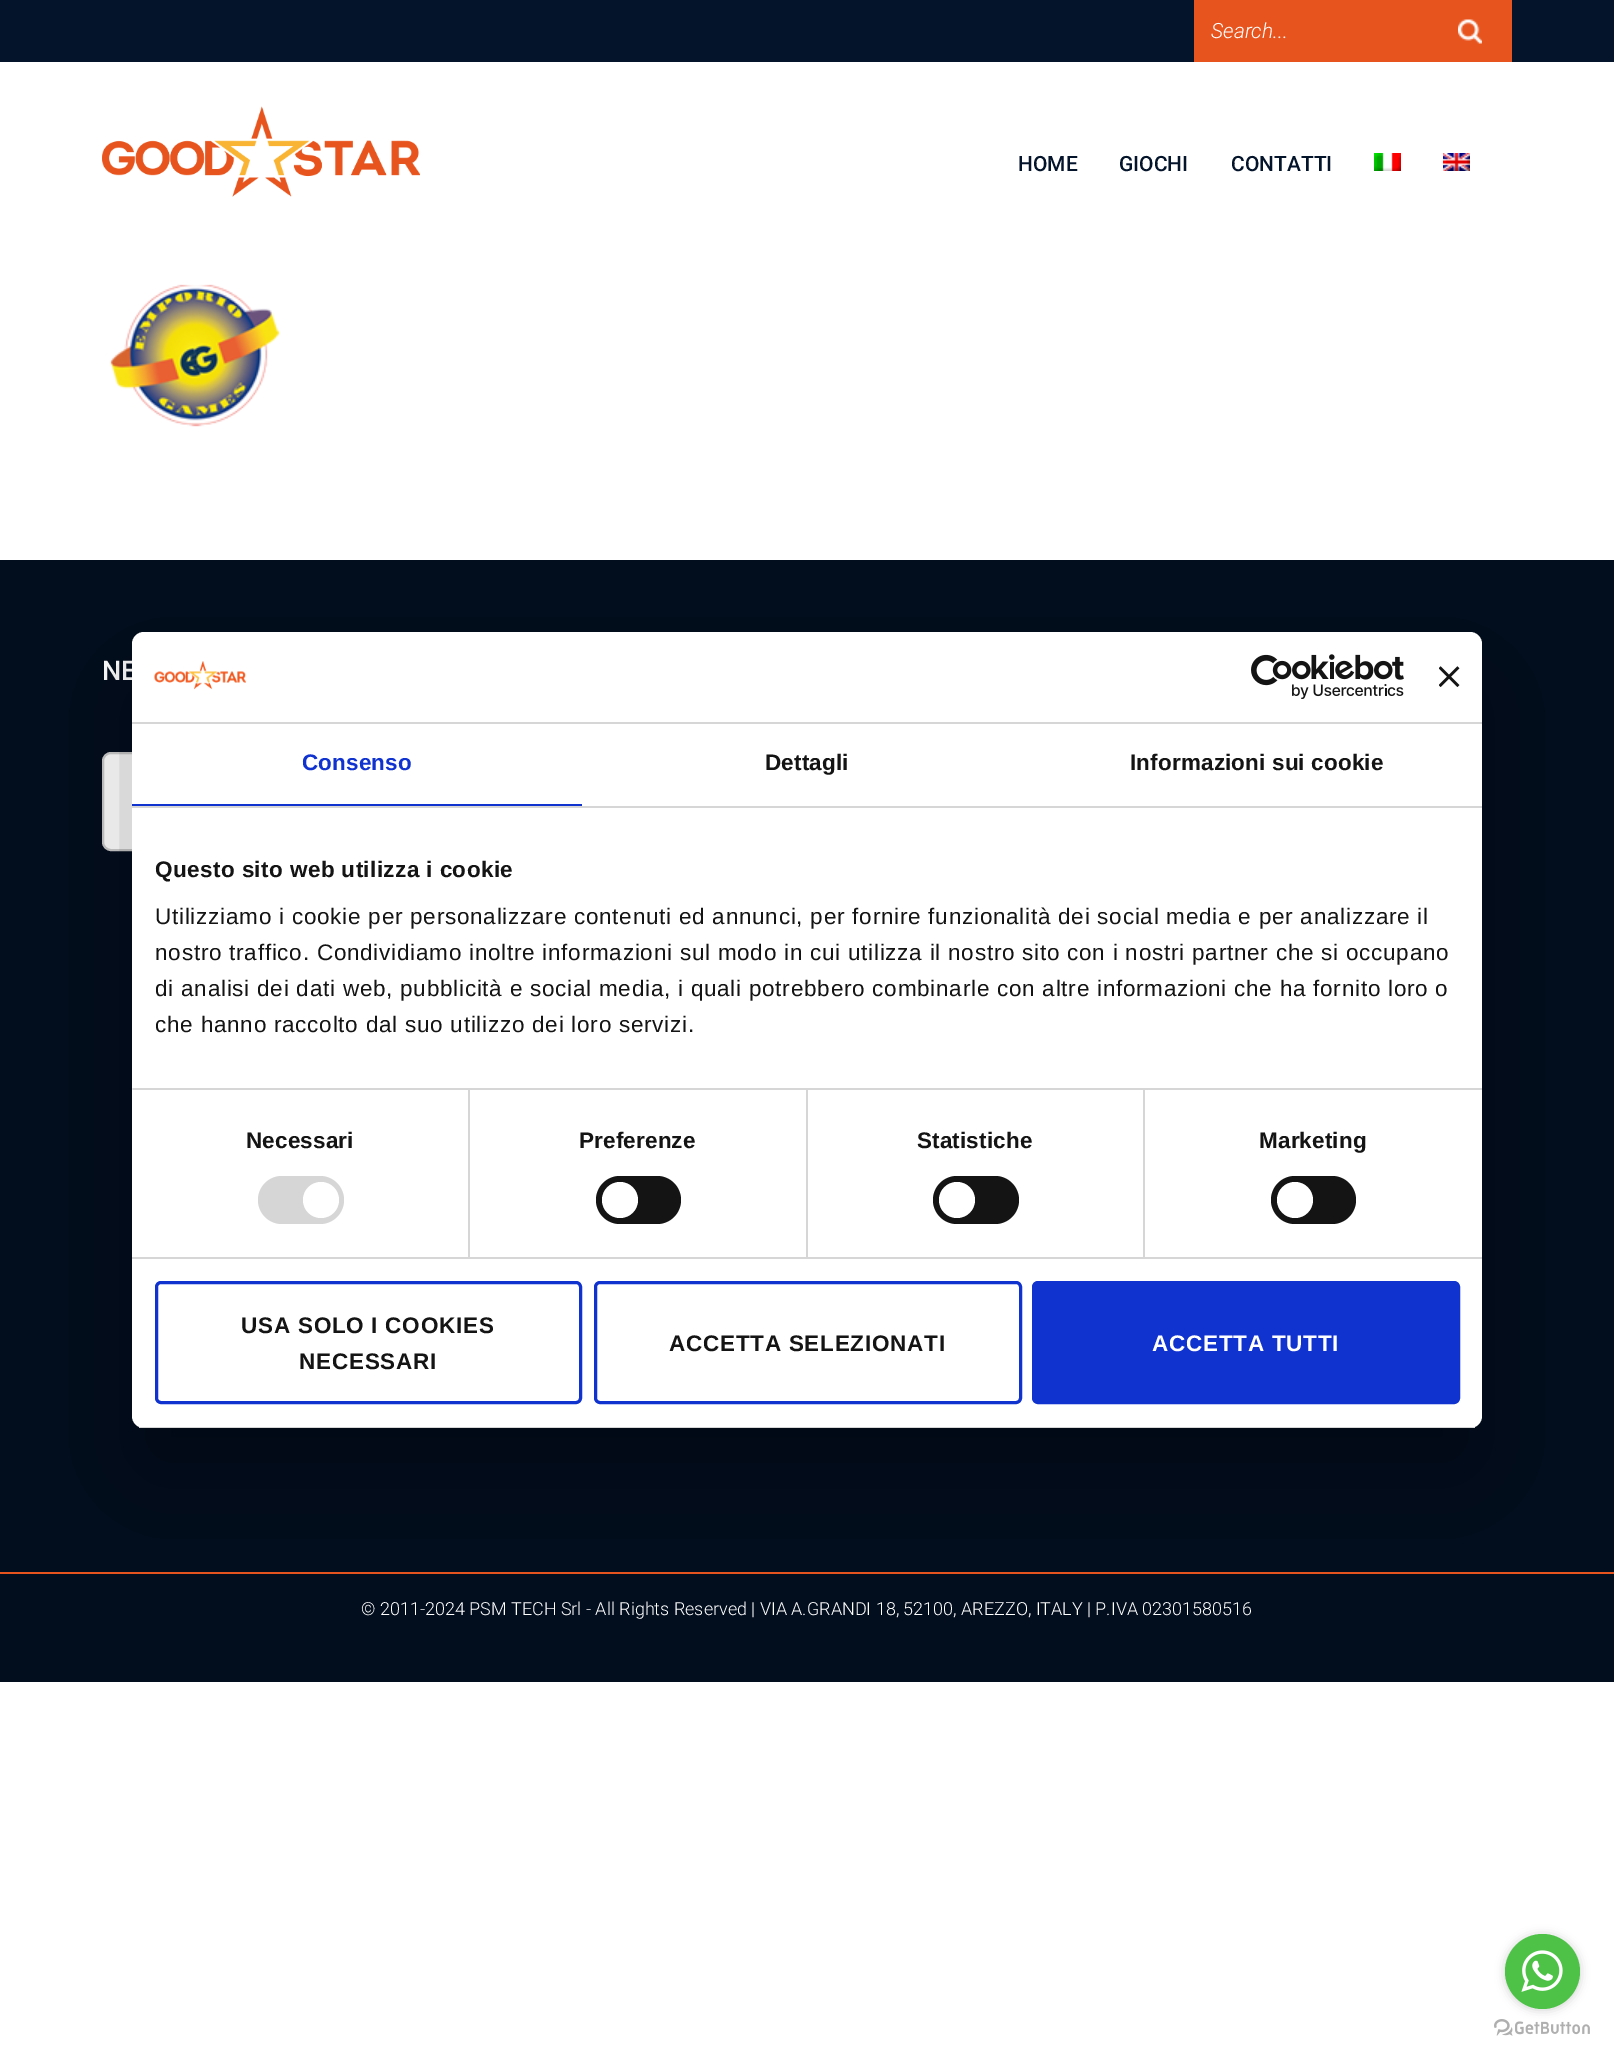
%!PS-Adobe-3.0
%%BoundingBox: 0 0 1614 2059
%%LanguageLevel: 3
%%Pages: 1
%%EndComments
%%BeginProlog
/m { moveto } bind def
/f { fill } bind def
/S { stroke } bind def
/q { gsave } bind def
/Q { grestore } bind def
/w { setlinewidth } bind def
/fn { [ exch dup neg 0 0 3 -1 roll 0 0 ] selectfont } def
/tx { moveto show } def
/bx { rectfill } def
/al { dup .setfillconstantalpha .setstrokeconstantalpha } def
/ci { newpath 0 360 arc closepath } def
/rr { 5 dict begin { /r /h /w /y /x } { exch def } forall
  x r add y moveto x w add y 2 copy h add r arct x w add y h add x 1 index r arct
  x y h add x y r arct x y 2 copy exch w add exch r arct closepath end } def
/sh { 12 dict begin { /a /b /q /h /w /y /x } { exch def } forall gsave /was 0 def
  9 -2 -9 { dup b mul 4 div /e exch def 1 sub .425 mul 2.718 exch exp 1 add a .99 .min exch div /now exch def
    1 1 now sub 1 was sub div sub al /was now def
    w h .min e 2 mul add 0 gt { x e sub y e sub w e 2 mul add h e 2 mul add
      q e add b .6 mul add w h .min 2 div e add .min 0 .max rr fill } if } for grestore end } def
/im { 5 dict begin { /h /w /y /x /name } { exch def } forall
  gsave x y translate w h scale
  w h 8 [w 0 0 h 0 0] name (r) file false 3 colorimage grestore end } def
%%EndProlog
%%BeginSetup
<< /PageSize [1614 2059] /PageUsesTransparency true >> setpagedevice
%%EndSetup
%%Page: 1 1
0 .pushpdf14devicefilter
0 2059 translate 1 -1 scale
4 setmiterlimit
1 setgray
0 0 1614 2059 bx
0.016 0.078 0.169 setrgbcolor
0 0 1614 62 bx
0.906 0.329 0.118 setrgbcolor
1194 0 318 62 bx
/Roboto-LightItalic 21 fn
1 setgray
(Search...) 1211 38 tx
(image0.raw) 1458 19 24 25 im
(image1.raw) 102 106 318 91 im
/Roboto-Medium 21 fn
0.016 0.078 0.169 setrgbcolor
(HOME) 1018 171 tx
(GIOCHI) 1119 171 tx
(CONTATTI) 1231 171 tx
(image2.raw) 1374 153 27 18 im
(image3.raw) 1443 153 27 18 im
(image4.raw) 110 284 170 143 im
0.008 0.051 0.114 setrgbcolor
0 560 1614 1122 bx
/Roboto-Medium 27 fn
1 setgray
(NE) 102 680 tx
103 753 318 97 8 rr q f Q
0.8 setgray
2 w
S
0.906 0.329 0.118 setrgbcolor
0 1572 1614 2 bx
/Roboto-Light 18 fn
1 setgray
(© 2011-2024 PSM TECH Srl - All Rights Reserved | VIA A.GRANDI 18, 52100, AREZZO, ITALY | P.IVA 02301580516) 361 1615 tx
0 setgray
132 680 1350 796 12 51 0.3 sh
1 setgray
132 632 1350 796 12 rr f
0.839 setgray
132 722 1350 2 bx
(image5.raw) 154 661 92 29 im
(image6.raw) 1251 654 153 45 im
(image7.raw) 1439 666 21 21 im
132 806 1350 2 bx
0.063 0.196 0.812 setrgbcolor
132 804 450 2 bx
/LiberationSans-Bold 22.5 fn
302 770 m 0.15 0 (Consenso) ashow
0.078 setgray
765 770 m 0.15 0 (Dettagli) ashow
1130 770 m 0.15 0 (Informazioni sui cookie) ashow
0.839 setgray
468 1089 2 168 bx
806 1089 2 168 bx
1143 1089 2 168 bx
132 1088 1350 2 bx
0.078 setgray
155 877 m 0.4 0 (Questo sito web utilizza i cookie) ashow
/LiberationSans-Regular 22.5 fn
155 924 m 0.75 0 (Utilizziamo i cookie per personalizzare contenuti ed annunci, per fornire funzionalità dei social media e per analizzare il) ashow
155 960 m 0.75 0 (nostro traffico. Condividiamo inoltre informazioni sul modo in cui utilizza il nostro sito con i nostri partner che si occupano) ashow
155 996 m 0.75 0 (di analisi dei dati web, pubblicità e social media, i quali potrebbero combinarle con altre informazioni che ha fornito loro o) ashow
155 1032 m 0.75 0 (che hanno raccolto dal suo utilizzo dei loro servizi.) ashow
0.839 setgray
132 1257 1350 2 bx
0.898 setgray
132 1088 1 2 bx
/LiberationSans-Bold 22.5 fn
0.078 setgray
246 1148 m 0.15 0 (Necessari) ashow
0.839 setgray
258 1176 86 48 24 rr f
1 setgray
321 1200 18 ci f
0.078 setgray
579 1148 m 0.15 0 (Preferenze) ashow
596 1176 85 48 24 rr f
1 setgray
620 1200 18 ci f
0.078 setgray
917 1148 m 0.15 0 (Statistiche) ashow
933 1176 86 48 24 rr f
1 setgray
957 1200 18 ci f
0.078 setgray
1259 1148 m 0.15 0 (Marketing) ashow
1271 1176 85 48 24 rr f
1 setgray
1295 1200 18 ci f
q
132 632 1350 796 12 rr clip newpath
0.839 setgray
132 1427 1350 1 bx
Q
0.063 0.196 0.812 setrgbcolor
3 w
156.5 1282.5 424 120 4.5 rr S
0.078 setgray
241 1333 m 0.75 0 (USA SOLO I COOKIES) ashow
299 1369 m 0.75 0 (NECESSARI) ashow
0.063 0.196 0.812 setrgbcolor
595.5 1282.5 425 120 4.5 rr S
0.078 setgray
669 1351 m 0.75 0 (ACCETTA SELEZIONATI) ashow
0.063 0.196 0.812 setrgbcolor
1033.5 1282.5 425 120 4.5 rr q f Q
S
1 setgray
1152 1351 m 0.75 0 (ACCETTA TUTTI) ashow
(image9.raw) 1494 2019 96 17 im
0.533 setgray
1505 1935 75 75 37.5 5 0.4 sh
0.302 0.761 0.278 setrgbcolor
1542.5 1971.5 37.5 ci f
(image8.raw) 1521 1950 42 42 im
.poppdf14devicefilter showpage
%%EOF
